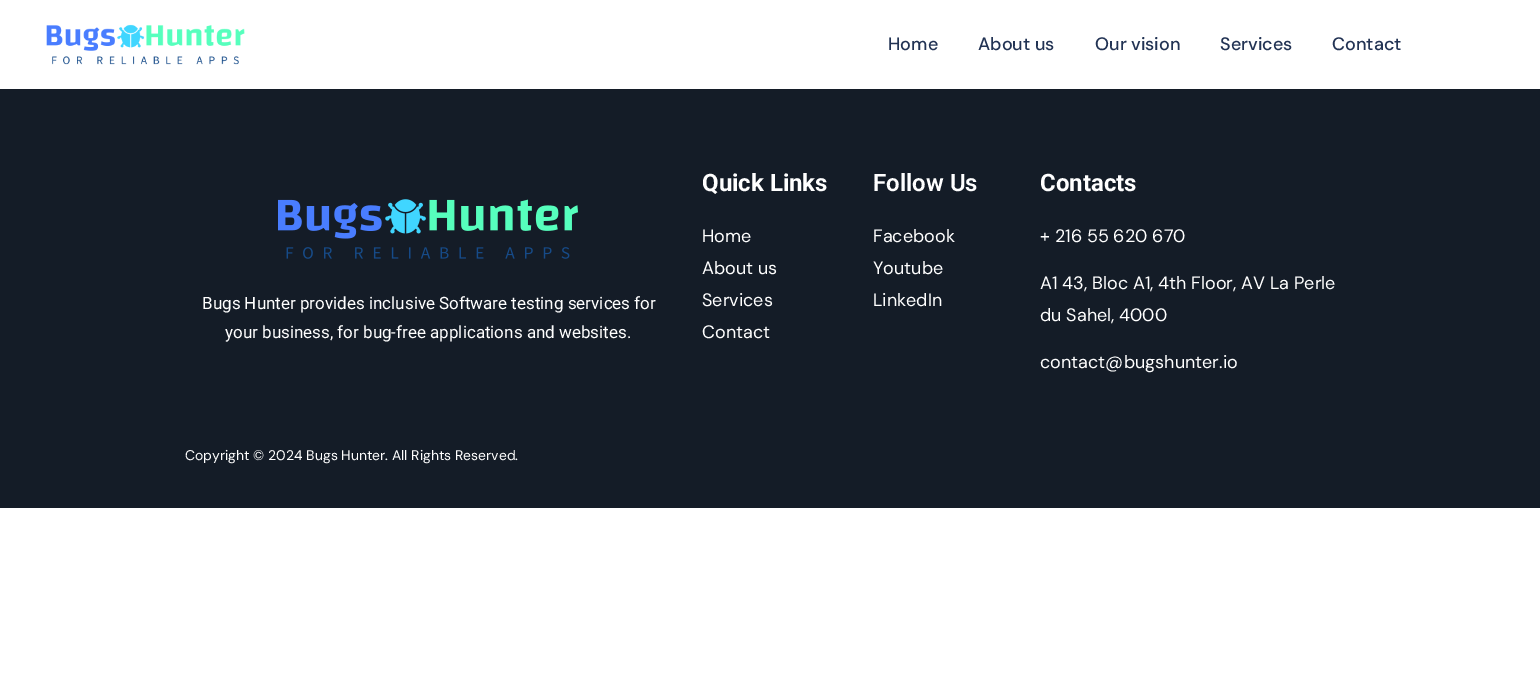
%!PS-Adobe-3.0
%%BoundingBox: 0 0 1540 674
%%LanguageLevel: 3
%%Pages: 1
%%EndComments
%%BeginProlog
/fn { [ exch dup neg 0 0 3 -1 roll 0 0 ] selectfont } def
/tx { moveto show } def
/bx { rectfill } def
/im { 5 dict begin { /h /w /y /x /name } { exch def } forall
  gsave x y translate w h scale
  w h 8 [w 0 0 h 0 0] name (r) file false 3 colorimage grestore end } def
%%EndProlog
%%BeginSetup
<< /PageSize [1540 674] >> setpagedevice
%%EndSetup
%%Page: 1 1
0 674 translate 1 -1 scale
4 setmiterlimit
1 setgray
0 0 1540 674 bx
(image0.raw) 46 24 199 41 im
/DMSans-Medium 18 fn
0.133 0.2 0.329 setrgbcolor
(Home) 888 50 tx
(About us) 978 50 tx
(Our vision) 1095 50 tx
(Services) 1220 50 tx
(Contact) 1332 50 tx
0.078 0.11 0.153 setrgbcolor
0 89 1540 419 bx
(image1.raw) 278 199 300 60 im
/Roboto-Regular 17 fn
1 setgray
(Bugs Hunter provides inclusive Software testing services for) 202 309 tx
(your business, for bug-free applications and websites.) 225 338 tx
/Roboto-Bold 24 fn
(Quick Links) 702 191 tx
/DMSans-Regular 18 fn
(Home) 702 242 tx
(About us) 702 274 tx
(Services) 702 306 tx
(Contact) 702 338 tx
/Roboto-SemiBold 24 fn
(Follow Us) 873 191 tx
/DMSans-Regular 18 fn
(Facebook) 873 242 tx
(Youtube) 873 274 tx
(LinkedIn) 873 306 tx
/Roboto-Bold 24 fn
(Contacts) 1040 191 tx
/DMSans-Regular 18 fn
(+ 216 55 620 670) 1040 242 tx
(A1 43, Bloc A1, 4th Floor, AV La Perle) 1040 289 tx
(du Sahel, 4000) 1040 321 tx
(contact@bugshunter.io) 1040 368 tx
/DMSans-Regular 14 fn
(Copyright © 2024 Bugs Hunter. All Rights Reserved.) 185 460 tx
showpage
%%EOF
